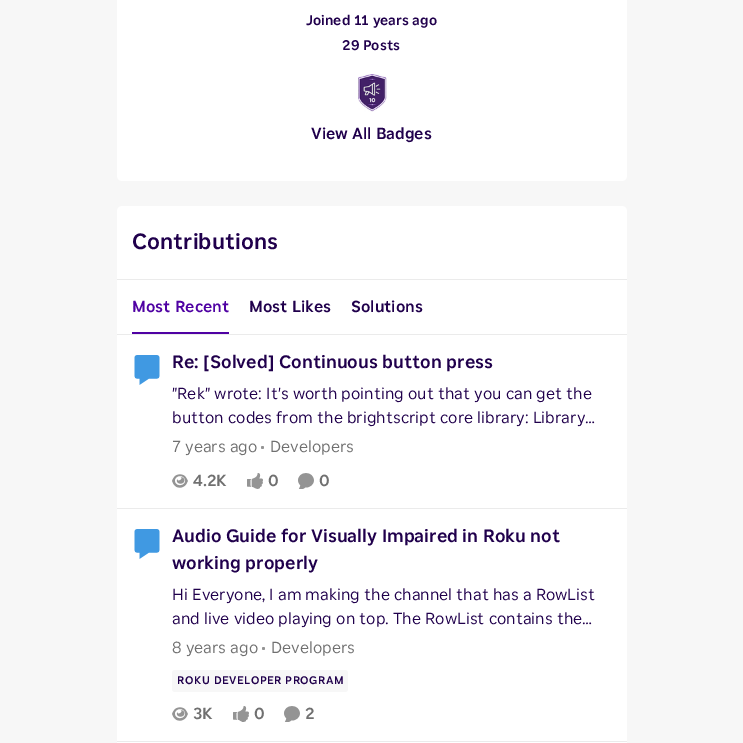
%!PS-Adobe-3.0
%%BoundingBox: 0 0 743 743
%%LanguageLevel: 3
%%Pages: 1
%%EndComments
%%BeginProlog
/m { moveto } bind def
/f { fill } bind def
/fn { [ exch dup neg 0 0 3 -1 roll 0 0 ] selectfont } def
/tx { moveto show } def
/bx { rectfill } def
/ci { newpath 0 360 arc closepath } def
/rr { 5 dict begin { /r /h /w /y /x } { exch def } forall
  x r add y moveto x w add y 2 copy h add r arct x w add y h add x 1 index r arct
  x y h add x y r arct x y 2 copy exch w add exch r arct closepath end } def
/im { 5 dict begin { /h /w /y /x /name } { exch def } forall
  gsave x y translate w h scale
  w h 8 [w 0 0 h 0 0] name (r) file false 3 colorimage grestore end } def
%%EndProlog
%%BeginSetup
<< /PageSize [743 743] >> setpagedevice
%%EndSetup
%%Page: 1 1
0 743 translate 1 -1 scale
4 setmiterlimit
0.969 setgray
0 0 743 743 bx
1 setgray
117 -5 510 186 5 rr f
/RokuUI-Medium 14 fn
0.125 0 0.298 setrgbcolor
(Joined 11 years ago) 306 25 tx
(29 Posts) 342 50 tx
(image0.raw) 358 74 29 38 im
/RokuUI-Medium 16 fn
(View All Badges) 311 139 tx
1 setgray
117 206 510 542 5 rr f
0.922 setgray
117 279 510 1 bx
/RokuUI-Medium 22 fn
0.125 0 0.298 setrgbcolor
(Contributions) 132 249 tx
0.922 setgray
117 334 510 1 bx
/RokuUI-Medium 16 fn
0.31 0.004 0.639 setrgbcolor
(Most Recent) 132 312 tx
132 332 97 2 bx
0.125 0 0.298 setrgbcolor
(Most Likes) 249 312 tx
(Solutions) 351 312 tx
0.922 setgray
117 508 510 1 bx
(image1.raw) 134 355 26 30 im
/RokuUI-Medium 18 fn
0.125 0 0.298 setrgbcolor
(Re: [Solved] Continuous button press) 172 368 tx
/RokuUI-Regular 16 fn
("Rek" wrote: It's worth pointing out that you can get the) 172 399 tx
(button codes from the brightscript core library: Library…) 172 423 tx
0.439 setgray
(7 years ago) 172 452 tx
0.58 setgray
262.5 447.5 1.5 ci f
0.439 setgray
(Developers) 270 452 tx
(image2.raw) 172 474 16 14 im
/RokuUI-Medium 16 fn
(4.2K) 193 486 tx
(image3.raw) 247 473 16 16 im
(0) 268 486 tx
(image4.raw) 298 473 16 16 im
(0) 319 486 tx
0.922 setgray
117 741 510 1 bx
(image1.raw) 134 529 26 30 im
/RokuUI-Medium 18 fn
0.125 0 0.298 setrgbcolor
(Audio Guide for Visually Impaired in Roku not) 172 542 tx
(working properly) 172 569 tx
/RokuUI-Regular 16 fn
(Hi Everyone, I am making the channel that has a RowList) 172 600 tx
(and live video playing on top. The RowList contains the…) 172 624 tx
0.439 setgray
(8 years ago) 172 653 tx
0.58 setgray
263.5 648.5 1.5 ci f
0.439 setgray
(Developers) 271 653 tx
0.969 setgray
172 670 176 22 3 rr f
/RokuUI-Medium 11 fn
0.125 0 0.298 setrgbcolor
177 684 m 0.5 0 (ROKU DEVELOPER PROGRAM) ashow
(image2.raw) 172 707 16 14 im
/RokuUI-Medium 16 fn
0.439 setgray
(3K) 193 719 tx
(image5.raw) 233 706 16 16 im
(0) 254 719 tx
(image4.raw) 284 706 16 16 im
(2) 305 719 tx
showpage
%%EOF
